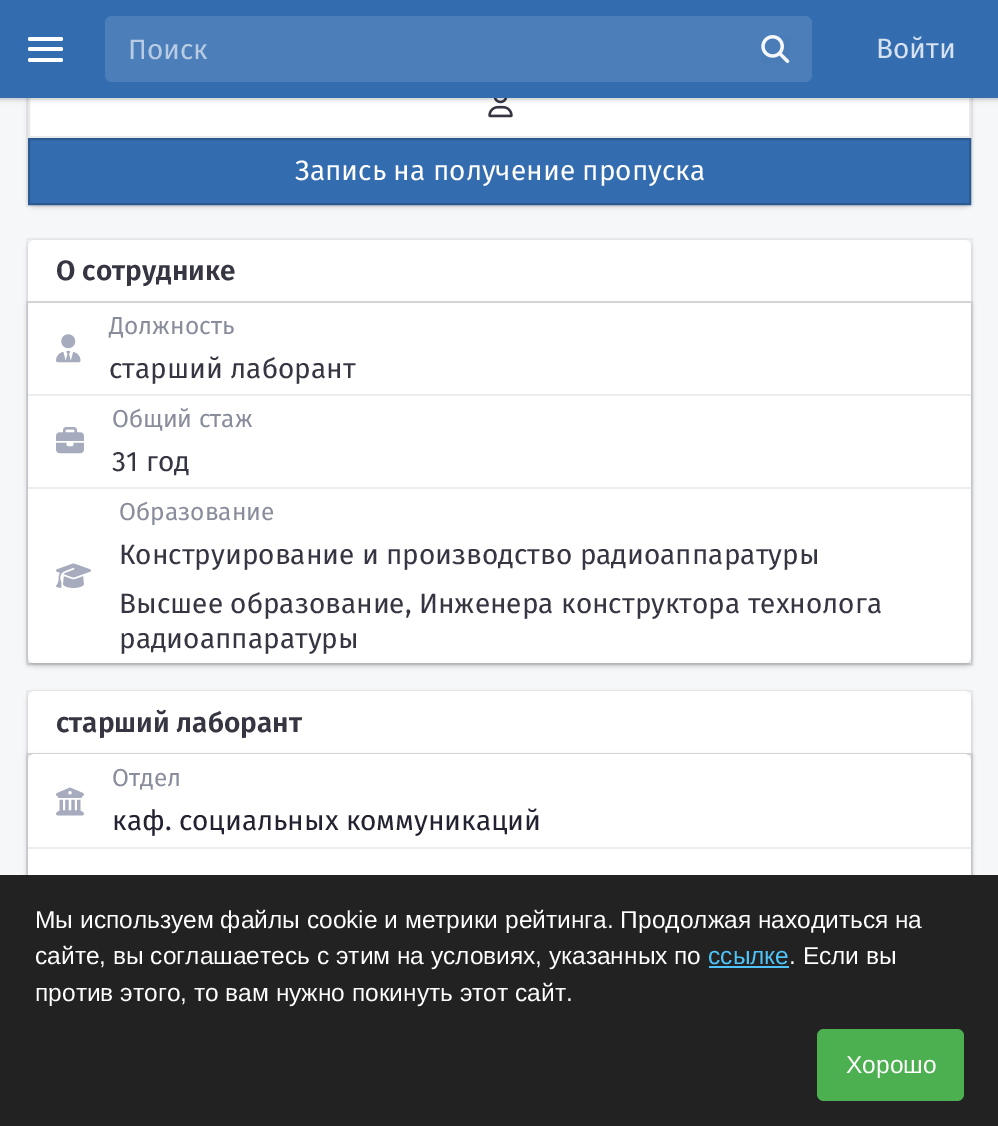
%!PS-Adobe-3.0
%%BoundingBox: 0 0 998 1126
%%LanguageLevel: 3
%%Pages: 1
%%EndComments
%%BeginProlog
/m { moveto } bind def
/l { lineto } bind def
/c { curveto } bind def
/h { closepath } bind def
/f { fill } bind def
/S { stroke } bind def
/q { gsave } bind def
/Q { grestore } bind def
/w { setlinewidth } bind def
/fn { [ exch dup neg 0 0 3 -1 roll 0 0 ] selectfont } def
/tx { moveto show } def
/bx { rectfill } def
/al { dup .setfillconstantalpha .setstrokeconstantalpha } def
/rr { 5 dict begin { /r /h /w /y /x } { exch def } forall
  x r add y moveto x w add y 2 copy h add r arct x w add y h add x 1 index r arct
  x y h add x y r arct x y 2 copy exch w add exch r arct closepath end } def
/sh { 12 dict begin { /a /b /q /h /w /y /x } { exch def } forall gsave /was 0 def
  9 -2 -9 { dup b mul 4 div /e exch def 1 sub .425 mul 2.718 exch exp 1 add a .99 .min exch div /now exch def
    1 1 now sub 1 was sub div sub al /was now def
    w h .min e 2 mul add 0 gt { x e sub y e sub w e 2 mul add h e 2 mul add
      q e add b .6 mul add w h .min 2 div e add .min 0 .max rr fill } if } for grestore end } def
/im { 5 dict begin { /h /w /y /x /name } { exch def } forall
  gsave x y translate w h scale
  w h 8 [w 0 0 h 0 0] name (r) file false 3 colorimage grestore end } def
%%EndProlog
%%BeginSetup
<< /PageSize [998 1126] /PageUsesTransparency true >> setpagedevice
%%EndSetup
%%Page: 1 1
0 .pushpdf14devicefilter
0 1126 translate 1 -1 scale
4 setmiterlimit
0.965 0.969 0.976 setrgbcolor
0 0 998 1126 bx
0.078 0.078 0.122 setrgbcolor
28 -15 943 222 7 2.5 0.15 sh
0.05 al
2 w
27 -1 945 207 rectstroke
1 al
1 setgray
30 98 939 38 bx
0.914 0.914 0.918 setrgbcolor
29 73 941 64 rectstroke
(image1.raw) 488 98 25 20 im
0.078 0.078 0.122 setrgbcolor
0 2 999 98 0 2.5 0.15 sh
0.05 al
-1 -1 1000 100 rectstroke
1 al
0.204 0.424 0.69 setrgbcolor
0 0 998 98 bx
1 setgray
28 47 35 4 2 rr f
28 37 35 4 2 rr f
28 58 35 4 2 rr f
0.298 0.494 0.725 setrgbcolor
105 16 707 66 7 rr f
/FiraSans-Regular 28 fn
0.718 0.796 0.89 setrgbcolor
(Поиск) 128 59 tx
(image0.raw) 761 35 29 28 im
0.839 0.886 0.937 setrgbcolor
(Войти) 876 58 tx
0.204 0.424 0.69 setrgbcolor
29 139 m 970 139 l 970 204 l 29 204 l h q f Q
0.169 0.353 0.573 setrgbcolor
S
1 setgray
(Запись на получение пропуска) 295 180 tx
0.078 0.078 0.122 setrgbcolor
28 242 943 423 7 2.5 0.15 sh
0.05 al
27 239 945 425 rectstroke
1 al
1 setgray
28 240 943 423 7 rr f
0.89 0.89 0.894 setrgbcolor
28 301 943 2 bx
/FiraSans-SemiBold 28 fn
0.212 0.212 0.259 setrgbcolor
(О сотруднике) 56 280 tx
q
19 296 m 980 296 l 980 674 l 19 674 l h 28 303 m 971 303 l 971 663 l 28 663 l h eoclip newpath
0.078 0.078 0.122 setrgbcolor
28 305 943 360 0 2.5 0.15 sh
Q
0.05 al
0.078 0.078 0.122 setrgbcolor
27 302 945 362 rectstroke
1 al
0.925 0.929 0.945 setrgbcolor
28 394 943 2 bx
(image2.raw) 56 334 25 29 im
/FiraSans-Regular 24.5 fn
0.533 0.549 0.608 setrgbcolor
(Должность) 109 334 tx
/FiraSans-Regular 28 fn
0.212 0.212 0.259 setrgbcolor
(старший лаборант) 109 378 tx
(image3.raw) 56 427 28 27 im
/FiraSans-Regular 24.5 fn
0.533 0.549 0.608 setrgbcolor
(Общий стаж) 112 427 tx
/FiraSans-Regular 28 fn
0.212 0.212 0.259 setrgbcolor
(31 год) 112 471 tx
1 setgray
28 488 m 971 488 l 971 656 l 971 660 968 663 964 663 c 35 663 l 31 663 28 660 28 656 c h f
0.925 0.929 0.945 setrgbcolor
28 487 943 2 bx
(image4.raw) 56 563 35 25 im
/FiraSans-Regular 24.5 fn
0.533 0.549 0.608 setrgbcolor
(Образование) 119 520 tx
/FiraSans-Regular 28 fn
0.212 0.212 0.259 setrgbcolor
(Конструирование и производство радиоаппаратуры) 119 564 tx
(Высшее образование, Инженера конструктора технолога) 119 613 tx
(радиоаппаратуры) 119 648 tx
0.078 0.078 0.122 setrgbcolor
28 693 943 250 7 2.5 0.15 sh
0.05 al
27 691 945 251 rectstroke
1 al
1 setgray
28 691 943 251 7 rr f
0.89 0.89 0.894 setrgbcolor
28 753 943 2 bx
/FiraSans-SemiBold 28 fn
0.212 0.212 0.259 setrgbcolor
(старший лаборант) 56 732 tx
0.078 0.078 0.122 setrgbcolor
28 756 943 187 0 2.5 0.15 sh
0.05 al
27 754 945 188 rectstroke
1 al
1 setgray
35 754 m 964 754 l 968 754 971 757 971 761 c 971 847 l 28 847 l 28 761 l 28 757 31 754 35 754 c h f
0.925 0.929 0.945 setrgbcolor
28 847 943 2 bx
(image5.raw) 56 787 28 29 im
/FiraSans-Regular 24.5 fn
0.533 0.549 0.608 setrgbcolor
(Отдел) 112 786 tx
/FiraSans-Regular 28 fn
0.133 0.133 0.188 setrgbcolor
(каф. социальных коммуникаций) 112 830 tx
1 setgray
28 849 943 26 bx
0.133 setgray
0 875 998 251 bx
/LiberationSans-Regular 24.5 fn
1 setgray
(Мы используем файлы cookie и метрики рейтинга. Продолжая находиться на) 35 928 tx
(сайте, вы соглашаетесь с этим на условиях, указанных по) 35 964 tx
0.31 0.765 0.969 setrgbcolor
(ссылке) 708 964 tx
709 966 80 2 bx
1 setgray
(. Если вы) 789 964 tx
(против этого, то вам нужно покинуть этот сайт.) 35 1001 tx
0.298 0.686 0.314 setrgbcolor
817 1029 147 72 7 rr f
1 setgray
(Хорошо) 846 1073 tx
.poppdf14devicefilter showpage
%%EOF
